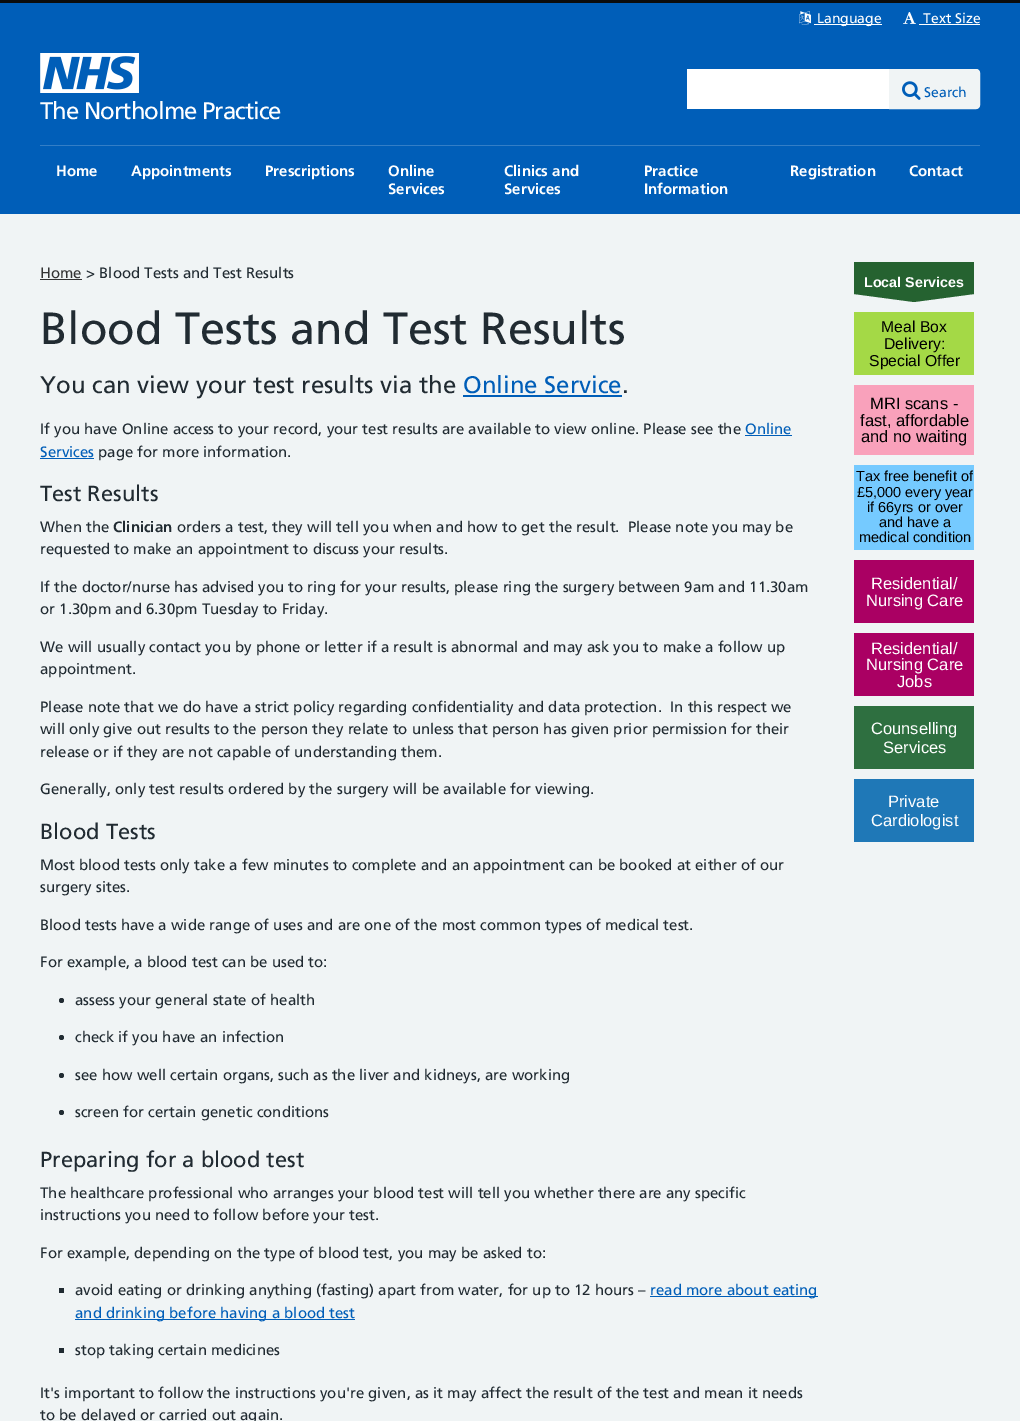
%!PS-Adobe-3.0
%%BoundingBox: 0 0 1020 1421
%%LanguageLevel: 3
%%Pages: 1
%%EndComments
%%BeginProlog
/m { moveto } bind def
/l { lineto } bind def
/c { curveto } bind def
/h { closepath } bind def
/f { fill } bind def
/S { stroke } bind def
/q { gsave } bind def
/Q { grestore } bind def
/fn { [ exch dup neg 0 0 3 -1 roll 0 0 ] selectfont } def
/tx { moveto show } def
/bx { rectfill } def
/ci { newpath 0 360 arc closepath } def
/im { 5 dict begin { /h /w /y /x /name } { exch def } forall
  gsave x y translate w h scale
  w h 8 [w 0 0 h 0 0] name (r) file false 3 colorimage grestore end } def
%%EndProlog
%%BeginSetup
<< /PageSize [1020 1421] >> setpagedevice
%%EndSetup
%%Page: 1 1
0 1421 translate 1 -1 scale
4 setmiterlimit
0.941 0.957 0.961 setrgbcolor
0 0 1020 1421 bx
0.043 0.047 0.047 setrgbcolor
0 0 1020 3 bx
0 0.369 0.722 setrgbcolor
0 3 1020 211 bx
(image0.raw) 799 11 12 14 im
1 setgray
814 24 68 1 bx
/Frutiger-Regular 14 fn
(Language) 817 23 tx
(image1.raw) 903 12 13 12 im
(Text Size) 923 23 tx
919 24 61 1 bx
687 69 202 40 bx
0.941 0.957 0.961 setrgbcolor
889.5 69.5 m 976 69.5 l 978 69.5 979.5 71 979.5 73 c 979.5 105 l 979.5 107 978 108.5 976 108.5 c 889.5 108.5 l h q f Q
S
(image2.raw) 902 81 19 19 im
0 0.369 0.722 setrgbcolor
(Search) 924 97 tx
(image3.raw) 40 53 99 40 im
/Frutiger-Regular 24 fn
1 setgray
40 119 m -1 0 (The Northolme Practice) ashow
0.2 0.494 0.776 setrgbcolor
40 145 940 1 bx
/Frutiger-Bold 15 fn
1 setgray
(Home) 56 176 tx
(Appointments) 131 176 tx
(Prescriptions) 265 176 tx
(Online) 388 176 tx
(Services) 388 194 tx
(Clinics and) 504 176 tx
(Services) 504 194 tx
(Practice) 644 176 tx
(Information) 644 194 tx
(Registration) 790 176 tx
(Contact) 909 176 tx
/Frutiger-Regular 15 fn
0.2 setgray
(Home) 40 278 tx
40 279 42 1 bx
0.129 0.169 0.196 setrgbcolor
(> Blood Tests and Test Results) 86 278 tx
/Frutiger-Regular 45 fn
(Blood Tests and Test Results) 40 344 tx
/Frutiger-Regular 24 fn
(You can view your test results via the) 40 393 tx
0 0.369 0.722 setrgbcolor
(Online Service) 463 393 tx
463 395 159 2 bx
0.129 0.169 0.196 setrgbcolor
(.) 622 393 tx
/Frutiger-Regular 15 fn
(If you have Online access to your record, your test results are available to view online. Please see the) 40 434 tx
0 0.369 0.722 setrgbcolor
(Online) 745 434 tx
745 435 47 1 bx
(Services) 40 457 tx
40 458 54 1 bx
0.129 0.169 0.196 setrgbcolor
(page for more information.) 98 457 tx
/Frutiger-Regular 21.9 fn
(Test Results) 40 501 tx
/Frutiger-Regular 15 fn
(When the) 40 532 tx
/Frutiger-Bold 15 fn
(Clinician) 113 532 tx
/Frutiger-Regular 15 fn
(orders a test, they will tell you when and how to get the result.  Please note you may be) 177 532 tx
(requested to make an appointment to discuss your results.) 40 554 tx
(If the doctor/nurse has advised you to ring for your results, please ring the surgery between 9am and 11.30am) 40 592 tx
(or 1.30pm and 6.30pm Tuesday to Friday.) 40 614 tx
(We will usually contact you by phone or letter if a result is abnormal and may ask you to make a follow up) 40 652 tx
(appointment.) 40 674 tx
(Please note that we do have a strict policy regarding confidentiality and data protection.  In this respect we) 40 712 tx
(will only give out results to the person they relate to unless that person has given prior permission for their) 40 734 tx
(release or if they are not capable of understanding them.) 40 757 tx
(Generally, only test results ordered by the surgery will be available for viewing.) 40 794 tx
/Frutiger-Regular 21.9 fn
(Blood Tests) 40 839 tx
/Frutiger-Regular 15 fn
(Most blood tests only take a few minutes to complete and an appointment can be booked at either of our) 40 870 tx
(surgery sites.) 40 892 tx
(Blood tests have a wide range of uses and are one of the most common types of medical test.) 40 930 tx
(For example, a blood test can be used to:) 40 967 tx
61.5 1000.5 2.5 ci f
(assess your general state of health) 75 1005 tx
61.5 1037.5 2.5 ci f
(check if you have an infection) 75 1042 tx
61.5 1075.5 2.5 ci f
(see how well certain organs, such as the liver and kidneys, are working) 75 1080 tx
61.5 1112.5 2.5 ci f
(screen for certain genetic conditions) 75 1117 tx
/Frutiger-Regular 21.9 fn
(Preparing for a blood test) 40 1167 tx
/Frutiger-Regular 15 fn
(The healthcare professional who arranges your blood test will tell you whether there are any specific) 40 1198 tx
(instructions you need to follow before your test.) 40 1220 tx
(For example, depending on the type of blood test, you may be asked to:) 40 1258 tx
59 1288 5 5 bx
(avoid eating or drinking anything \(fasting\) apart from water, for up to 12 hours –) 75 1295 tx
0 0.369 0.722 setrgbcolor
650 1296 168 1 bx
(read more about eating) 650 1295 tx
75 1319 280 1 bx
(and drinking before having a blood test) 75 1318 tx
0.129 0.169 0.196 setrgbcolor
59 1348 5 5 bx
(stop taking certain medicines) 75 1355 tx
(It's important to follow the instructions you're given, as it may affect the result of the test and mean it needs) 40 1398 tx
(to be delayed or carried out again.) 40 1420 tx
0.145 0.384 0.188 setrgbcolor
854 262 m 974 262 l 974 294 l 914 302 l 854 294 l h f
/LiberationSans-Bold 14.25 fn
1 setgray
(Local Services) 864 287 tx
0.643 0.851 0.275 setrgbcolor
854 312 120 63 bx
/LiberationSans-Regular 15.75 fn
0 setgray
(Meal Box) 881 332 tx
(Delivery:) 884 349 tx
(Special Offer) 869 366 tx
0.976 0.631 0.733 setrgbcolor
854 385 120 70 bx
/LiberationSans-Regular 16.5 fn
0 setgray
(MRI scans -) 870 409 tx
(fast, affordable) 860 426 tx
(and no waiting) 861 442 tx
0.459 0.792 1 setrgbcolor
854 465 120 85 bx
/LiberationSans-Regular 14.5 fn
0 setgray
(Tax free benefit of) 856 481 tx
(£5,000 every year) 857 497 tx
(if 66yrs or over) 867 512 tx
(and have a) 879 527 tx
(medical condition) 859 542 tx
0.667 0 0.388 setrgbcolor
854 560 120 63 bx
/LiberationSans-Regular 16.5 fn
1 setgray
(Residential/) 871 589 tx
(Nursing Care) 866 606 tx
0.667 0 0.388 setrgbcolor
854 633 120 63 bx
1 setgray
(Residential/) 871 654 tx
(Nursing Care) 866 670 tx
(Jobs) 897 687 tx
0.18 0.435 0.251 setrgbcolor
854 706 120 63 bx
1 setgray
(Counselling) 871 734 tx
(Services) 883 753 tx
0.122 0.471 0.718 setrgbcolor
854 779 120 63 bx
1 setgray
(Private) 888 807 tx
(Cardiologist) 871 826 tx
showpage
%%EOF
